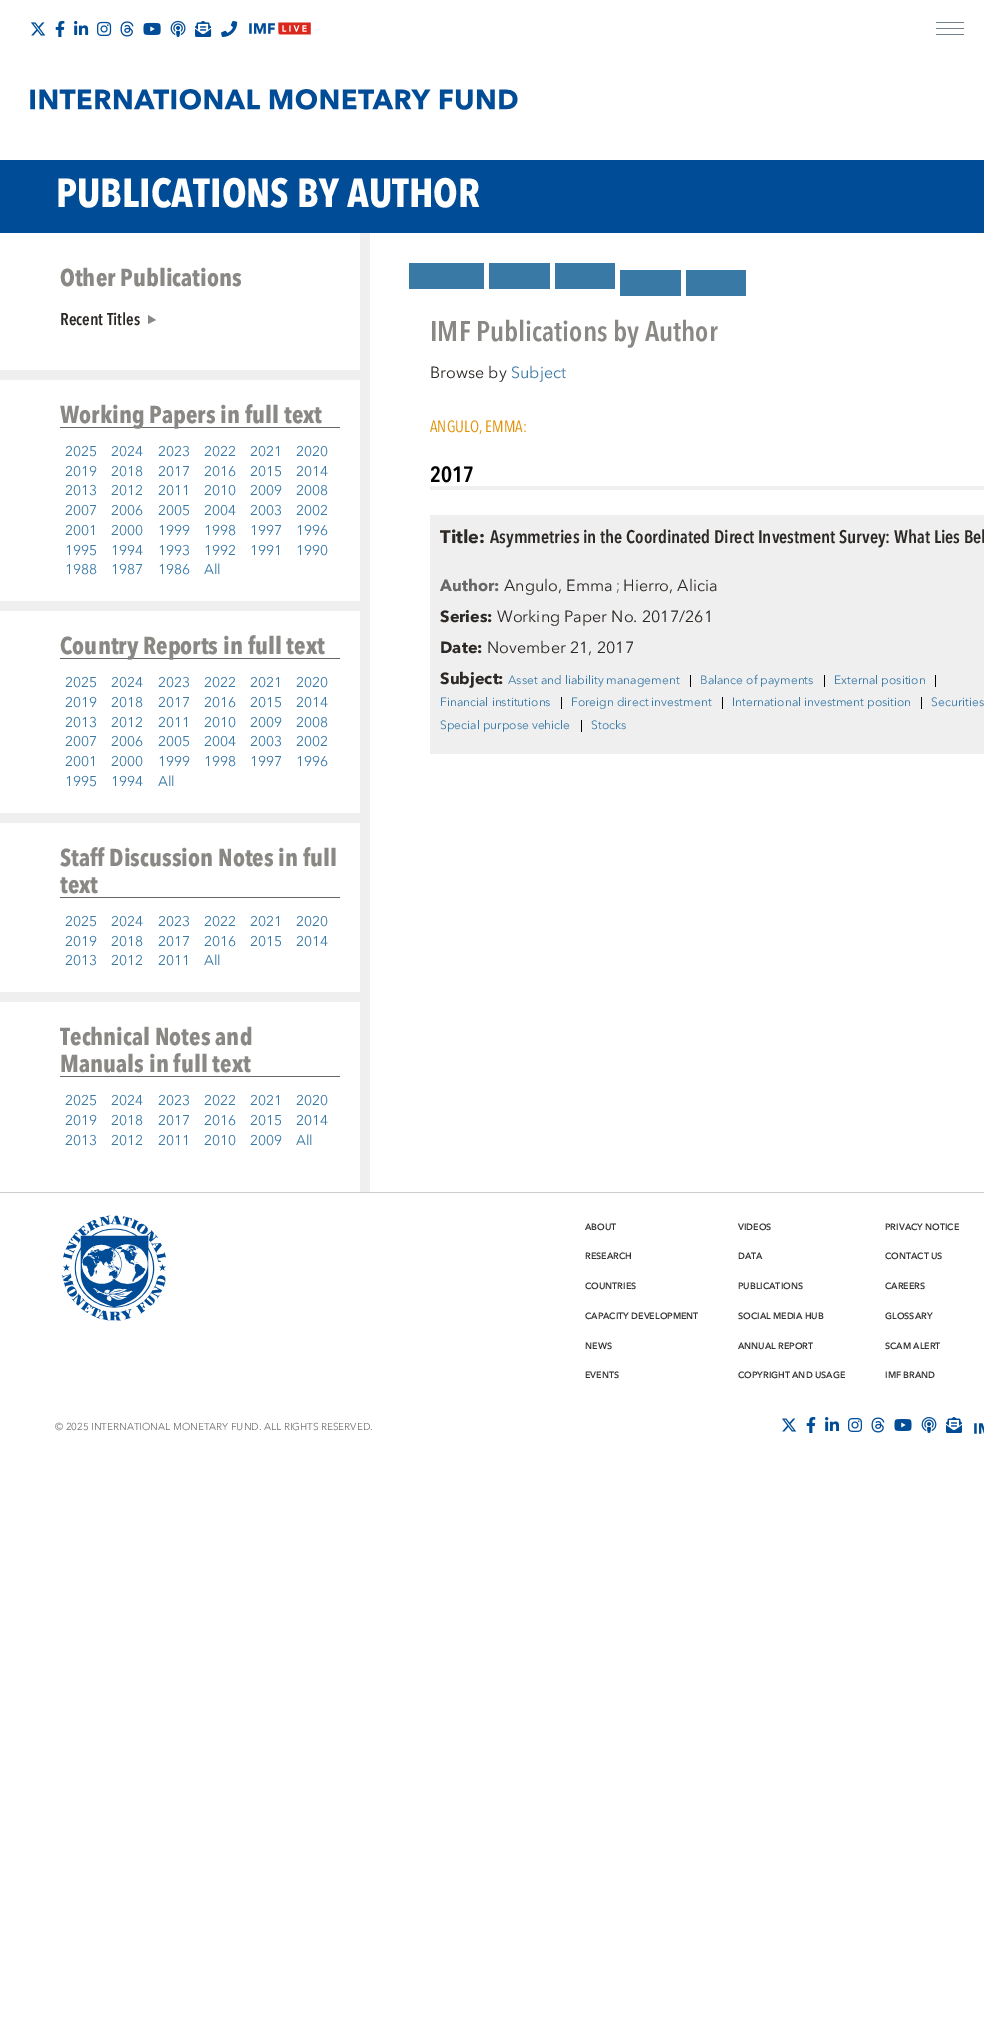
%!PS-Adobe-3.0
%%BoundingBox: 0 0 984 2022
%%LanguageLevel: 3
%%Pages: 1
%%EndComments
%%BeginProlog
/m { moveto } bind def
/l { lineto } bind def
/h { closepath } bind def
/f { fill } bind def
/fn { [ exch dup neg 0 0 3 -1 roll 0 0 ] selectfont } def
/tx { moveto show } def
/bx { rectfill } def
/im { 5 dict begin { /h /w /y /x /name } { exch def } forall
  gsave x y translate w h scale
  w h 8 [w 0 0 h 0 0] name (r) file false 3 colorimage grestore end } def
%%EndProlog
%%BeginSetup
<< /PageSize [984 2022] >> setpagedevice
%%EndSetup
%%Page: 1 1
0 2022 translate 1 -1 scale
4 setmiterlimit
1 setgray
0 0 984 2022 bx
(image0.raw) 31 22 15 14 im
(image1.raw) 55 20 10 17 im
(image2.raw) 74 20 15 15 im
(image3.raw) 97 21 15 15 im
(image4.raw) 120 21 14 16 im
(image5.raw) 143 22 18 13 im
(image6.raw) 170 20 16 17 im
(image7.raw) 195 20 17 17 im
(image8.raw) 221 20 17 17 im
(image9.raw) 249 22 62 13 im
(image10.raw) 30 89 488 21 im
0.443 0.506 0.549 setrgbcolor
936 22 28 1 bx
936 28 28 1 bx
936 34 28 1 bx
0 0.298 0.592 setrgbcolor
0 160 984 57 bx
/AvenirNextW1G-Bold 40.25 fn
1 setgray
(PUBLICATIONS BY AUTHOR) 56 207 tx
0 0.298 0.592 setrgbcolor
0 217 984 16 bx
0.937 setgray
360 233 10 959 bx
0 370 360 10 bx
/AvenirNextW1G-Bold 24.25 fn
0.541 0.533 0.522 setrgbcolor
(Other Publications) 60 286 tx
/AvenirNextW1G-SemiBold 17 fn
0.173 0.157 0.145 setrgbcolor
(Recent Titles) 60 325 tx
0.541 0.533 0.522 setrgbcolor
148 315 m 156 320 l 148 324 l h f
0.937 setgray
0 601 360 10 bx
0.4 0.404 0.4 setrgbcolor
60 427 280 1 bx
/AvenirNextW1G-Bold 24.25 fn
0.541 0.533 0.522 setrgbcolor
(Working Papers in full text) 60 423 tx
/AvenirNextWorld-Regular 14 fn
0.224 0.475 0.651 setrgbcolor
(2025) 65 456 tx
(2024) 111 456 tx
(2023) 158 456 tx
(2022) 204 456 tx
(2021) 250 456 tx
(2020) 296 456 tx
(2019) 65 476 tx
(2018) 111 476 tx
(2017) 158 476 tx
(2016) 204 476 tx
(2015) 250 476 tx
(2014) 296 476 tx
(2013) 65 495 tx
(2012) 111 495 tx
(2011) 158 495 tx
(2010) 204 495 tx
(2009) 250 495 tx
(2008) 296 495 tx
(2007) 65 515 tx
(2006) 111 515 tx
(2005) 158 515 tx
(2004) 204 515 tx
(2003) 250 515 tx
(2002) 296 515 tx
(2001) 65 535 tx
(2000) 111 535 tx
(1999) 158 535 tx
(1998) 204 535 tx
(1997) 250 535 tx
(1996) 296 535 tx
(1995) 65 555 tx
(1994) 111 555 tx
(1993) 158 555 tx
(1992) 204 555 tx
(1991) 250 555 tx
(1990) 296 555 tx
(1988) 65 574 tx
(1987) 111 574 tx
(1986) 158 574 tx
(All) 204 574 tx
0.937 setgray
0 813 360 10 bx
0.4 0.404 0.4 setrgbcolor
60 658 280 1 bx
/AvenirNextW1G-Bold 24.25 fn
0.541 0.533 0.522 setrgbcolor
(Country Reports in full text) 60 654 tx
/AvenirNextWorld-Regular 14 fn
0.224 0.475 0.651 setrgbcolor
(2025) 65 687 tx
(2024) 111 687 tx
(2023) 158 687 tx
(2022) 204 687 tx
(2021) 250 687 tx
(2020) 296 687 tx
(2019) 65 707 tx
(2018) 111 707 tx
(2017) 158 707 tx
(2016) 204 707 tx
(2015) 250 707 tx
(2014) 296 707 tx
(2013) 65 727 tx
(2012) 111 727 tx
(2011) 158 727 tx
(2010) 204 727 tx
(2009) 250 727 tx
(2008) 296 727 tx
(2007) 65 746 tx
(2006) 111 746 tx
(2005) 158 746 tx
(2004) 204 746 tx
(2003) 250 746 tx
(2002) 296 746 tx
(2001) 65 766 tx
(2000) 111 766 tx
(1999) 158 766 tx
(1998) 204 766 tx
(1997) 250 766 tx
(1996) 296 766 tx
(1995) 65 786 tx
(1994) 111 786 tx
(All) 158 786 tx
0.937 setgray
0 992 360 10 bx
0.4 0.404 0.4 setrgbcolor
60 897 280 1 bx
/AvenirNextW1G-Bold 24.25 fn
0.541 0.533 0.522 setrgbcolor
(Staff Discussion Notes in full) 60 866 tx
(text) 60 893 tx
/AvenirNextWorld-Regular 14 fn
0.224 0.475 0.651 setrgbcolor
(2025) 65 926 tx
(2024) 111 926 tx
(2023) 158 926 tx
(2022) 204 926 tx
(2021) 250 926 tx
(2020) 296 926 tx
(2019) 65 946 tx
(2018) 111 946 tx
(2017) 158 946 tx
(2016) 204 946 tx
(2015) 250 946 tx
(2014) 296 946 tx
(2013) 65 965 tx
(2012) 111 965 tx
(2011) 158 965 tx
(All) 204 965 tx
0.4 0.404 0.4 setrgbcolor
60 1076 280 1 bx
/AvenirNextW1G-Bold 24.25 fn
0.541 0.533 0.522 setrgbcolor
(Technical Notes and) 60 1045 tx
(Manuals in full text) 60 1072 tx
/AvenirNextWorld-Regular 14 fn
0.224 0.475 0.651 setrgbcolor
(2025) 65 1105 tx
(2024) 111 1105 tx
(2023) 158 1105 tx
(2022) 204 1105 tx
(2021) 250 1105 tx
(2020) 296 1105 tx
(2019) 65 1125 tx
(2018) 111 1125 tx
(2017) 158 1125 tx
(2016) 204 1125 tx
(2015) 250 1125 tx
(2014) 296 1125 tx
(2013) 65 1145 tx
(2012) 111 1145 tx
(2011) 158 1145 tx
(2010) 204 1145 tx
(2009) 250 1145 tx
(All) 296 1145 tx
409 263 75 26 bx
489 263 61 26 bx
555 263 60 26 bx
620 270 61 26 bx
686 270 60 26 bx
/AvenirNextW1G-SemiBold 28.25 fn
0.541 0.533 0.522 setrgbcolor
(IMF Publications by Author) 430 341 tx
/AvenirNextWorld-Regular 16.1 fn
0.173 0.157 0.145 setrgbcolor
(Browse by) 430 378 tx
0.224 0.475 0.651 setrgbcolor
(Subject) 511 378 tx
/AvenirNextW1G-Regular 16.1 fn
0.886 0.565 0 setrgbcolor
(ANGULO, EMMA:) 430 432 tx
0.937 setgray
430 486 554 4 bx
/AvenirNextW1G-SemiBold 22 fn
0 setgray
(2017) 430 482 tx
0.937 setgray
430 515 554 239 bx
/AvenirNextWorld-Bold 18.15 fn
0.173 0.157 0.145 setrgbcolor
(Title:) 440 543 tx
/AvenirNextW1G-SemiBold 18.15 fn
(Asymmetries in the Coordinated Direct Investment Survey: What Lies Beh) 490 543 tx
/AvenirNextWorld-Bold 16.1 fn
0.4 0.404 0.4 setrgbcolor
(Author:) 440 591 tx
/AvenirNextWorld-Regular 16.1 fn
0.173 0.157 0.145 setrgbcolor
(Angulo, Emma) 504 591 tx
/AvenirNextW1G-Regular 16.1 fn
0.4 0.404 0.4 setrgbcolor
(;) 616 591 tx
/AvenirNextWorld-Regular 16.1 fn
0.173 0.157 0.145 setrgbcolor
(Hierro, Alicia) 623 591 tx
/AvenirNextWorld-Bold 16.1 fn
(Series:) 440 622 tx
/AvenirNextWorld-Regular 16.1 fn
(Working Paper No. 2017/261) 497 622 tx
/AvenirNextWorld-Bold 16.1 fn
(Date:) 440 653 tx
/AvenirNextWorld-Regular 16.1 fn
(November 21, 2017) 487 653 tx
/AvenirNextWorld-Bold 16.1 fn
(Subject:) 440 684 tx
0 setgray
690 675 1 12 bx
/AvenirNextWorld-Regular 12 fn
0.224 0.475 0.651 setrgbcolor
(Asset and liability management) 508 684 tx
0 setgray
824 675 1 12 bx
0.224 0.475 0.651 setrgbcolor
(Balance of payments) 700 684 tx
0 setgray
935 675 1 12 bx
0.224 0.475 0.651 setrgbcolor
(External position) 834 684 tx
0 setgray
561 697 1 12 bx
0.224 0.475 0.651 setrgbcolor
(Financial institutions) 440 706 tx
0 setgray
722 697 1 12 bx
0.224 0.475 0.651 setrgbcolor
(Foreign direct investment) 571 706 tx
0 setgray
921 697 1 12 bx
0.224 0.475 0.651 setrgbcolor
(International investment position) 732 706 tx
(Securities) 931 706 tx
0 setgray
581 720 1 12 bx
0.224 0.475 0.651 setrgbcolor
(Special purpose vehicle) 440 729 tx
(Stocks) 591 729 tx
0.8 setgray
0 1192 984 1 bx
(image11.raw) 62 1215 104 106 im
/AvenirNextWorld-SemiBold 9 fn
0.2 setgray
(ABOUT) 585 1230 tx
(RESEARCH) 585 1259 tx
(COUNTRIES) 585 1289 tx
(CAPACITY DEVELOPMENT) 585 1319 tx
(NEWS) 585 1349 tx
(EVENTS) 585 1378 tx
(VIDEOS) 738 1230 tx
(DATA) 738 1259 tx
(PUBLICATIONS) 738 1289 tx
(SOCIAL MEDIA HUB) 738 1319 tx
(ANNUAL REPORT) 738 1349 tx
(COPYRIGHT AND USAGE) 738 1378 tx
(PRIVACY NOTICE) 885 1230 tx
(CONTACT US) 885 1259 tx
(CAREERS) 885 1289 tx
(GLOSSARY) 885 1319 tx
(SCAM ALERT) 885 1349 tx
(IMF BRAND) 885 1378 tx
/AvenirNextWorld-Regular 10 fn
0.439 0.451 0.447 setrgbcolor
(© 2025 INTERNATIONAL MONETARY FUND. ALL RIGHTS RESERVED.) 55 1430 tx
(image12.raw) 782 1418 15 14 im
(image13.raw) 806 1417 10 16 im
(image14.raw) 825 1417 14 14 im
(image15.raw) 848 1418 14 14 im
(image16.raw) 871 1417 14 16 im
(image17.raw) 894 1419 18 12 im
(image18.raw) 921 1417 16 16 im
(image19.raw) 946 1417 16 16 im
(image20.raw) 974 1423 10 11 im
showpage
%%EOF
